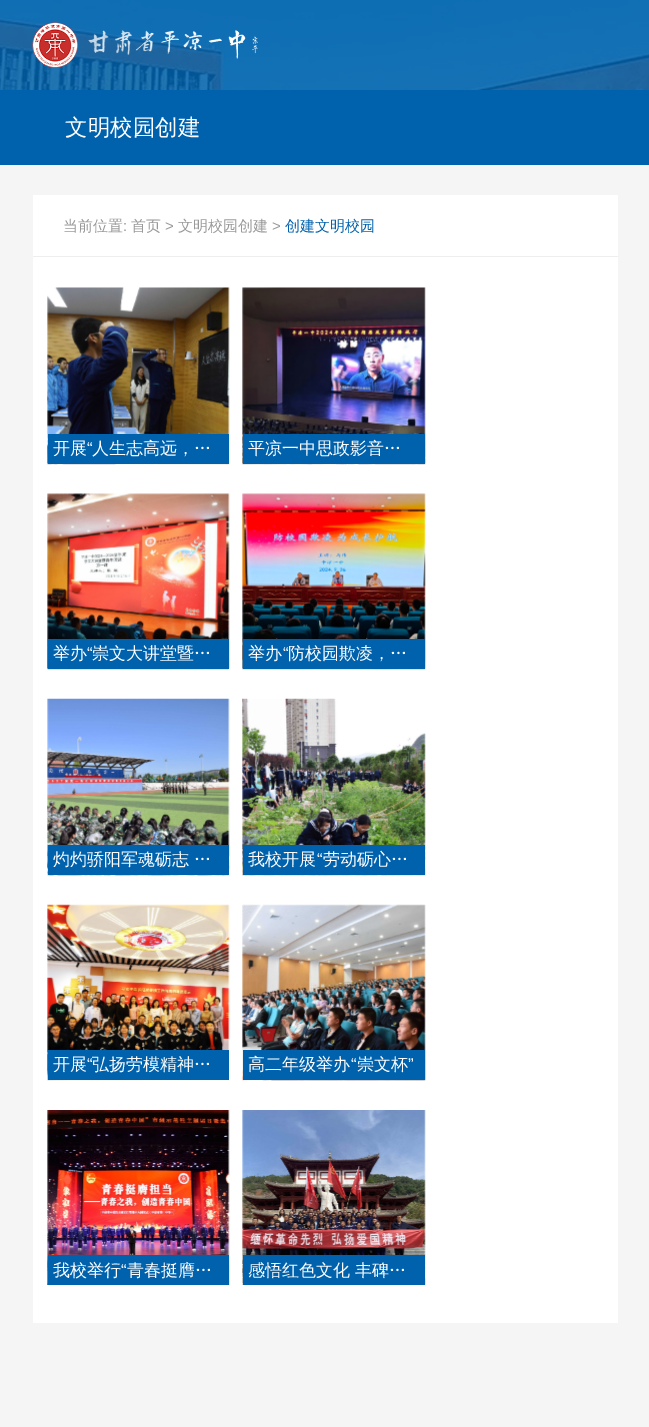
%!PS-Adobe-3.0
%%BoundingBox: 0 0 649 1427
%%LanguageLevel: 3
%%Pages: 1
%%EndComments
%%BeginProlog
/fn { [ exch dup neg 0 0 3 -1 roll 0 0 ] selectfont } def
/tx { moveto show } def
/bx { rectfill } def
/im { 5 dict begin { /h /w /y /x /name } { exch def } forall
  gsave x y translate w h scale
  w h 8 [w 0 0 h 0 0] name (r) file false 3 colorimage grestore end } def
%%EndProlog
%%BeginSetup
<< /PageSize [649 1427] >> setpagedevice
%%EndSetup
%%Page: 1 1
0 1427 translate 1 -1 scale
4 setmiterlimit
0.961 setgray
0 0 649 1427 bx
0 0.384 0.675 setrgbcolor
0 0 649 165 bx
(image0.raw) 0 0 649 90 im
(image1.raw) 32 22 226 46 im
/WenQuanYiZenHei-Medium 22.5 fn
1 setgray
(文明校园创建) 65 135 tx
33 195 585 1128 bx
0.933 setgray
33 256 585 1 bx
/WenQuanYiZenHei-Medium 15 fn
0.6 setgray
(当前位置) 63 231 tx
/LiberationSans-Regular 15 fn
(:) 123 231 tx
/WenQuanYiZenHei-Medium 15 fn
(首页) 131 231 tx
/LiberationSans-Regular 15 fn
(>) 165 231 tx
/WenQuanYiZenHei-Medium 15 fn
(文明校园创建) 178 231 tx
/LiberationSans-Regular 15 fn
(>) 272 231 tx
/WenQuanYiZenHei-Medium 15 fn
0 0.384 0.675 setrgbcolor
(创建文明校园) 285 231 tx
(image2.raw) 47 287 183 178 im
48 434 181 30 bx
/WenQuanYiZenHei-Medium 17 fn
1 setgray
(开展) 53 454 tx
/LiberationSans-Regular 17 fn
(“) 87 454 tx
/WenQuanYiZenHei-Medium 17 fn
(人生志高远，…) 92 454 tx
(image3.raw) 242 287 184 178 im
0 0.384 0.675 setrgbcolor
243 434 182 30 bx
1 setgray
(平凉一中思政影音…) 248 454 tx
(image4.raw) 47 493 183 177 im
0 0.384 0.675 setrgbcolor
48 639 181 30 bx
1 setgray
(举办) 53 659 tx
/LiberationSans-Regular 17 fn
(“) 87 659 tx
/WenQuanYiZenHei-Medium 17 fn
(崇文大讲堂暨…) 92 659 tx
(image5.raw) 242 493 184 177 im
0 0.384 0.675 setrgbcolor
243 639 182 30 bx
1 setgray
(举办) 248 659 tx
/LiberationSans-Regular 17 fn
(“) 283 659 tx
/WenQuanYiZenHei-Medium 17 fn
(防校园欺凌，…) 288 659 tx
(image6.raw) 47 698 183 178 im
0 0.384 0.675 setrgbcolor
48 845 181 30 bx
1 setgray
(灼灼骄阳军魂砺志 …) 53 865 tx
(image7.raw) 242 698 184 178 im
0 0.384 0.675 setrgbcolor
243 845 182 30 bx
1 setgray
(我校开展) 248 865 tx
/LiberationSans-Regular 17 fn
(“) 317 865 tx
/WenQuanYiZenHei-Medium 17 fn
(劳动砺心…) 323 865 tx
(image8.raw) 47 904 183 177 im
0 0.384 0.675 setrgbcolor
48 1050 181 30 bx
1 setgray
(开展) 53 1070 tx
/LiberationSans-Regular 17 fn
(“) 87 1070 tx
/WenQuanYiZenHei-Medium 17 fn
(弘扬劳模精神…) 92 1070 tx
(image9.raw) 242 904 184 177 im
0 0.384 0.675 setrgbcolor
243 1050 182 30 bx
1 setgray
(高二年级举办) 248 1070 tx
/LiberationSans-Regular 17 fn
(“) 351 1070 tx
/WenQuanYiZenHei-Medium 17 fn
(崇文杯) 357 1070 tx
/LiberationSans-Regular 17 fn
(”) 408 1070 tx
(image10.raw) 47 1110 183 175 im
0 0.384 0.675 setrgbcolor
48 1255 181 30 bx
/WenQuanYiZenHei-Medium 17 fn
1 setgray
(我校举行) 53 1276 tx
/LiberationSans-Regular 17 fn
(“) 121 1276 tx
/WenQuanYiZenHei-Medium 17 fn
(青春挺膺…) 127 1276 tx
(image11.raw) 242 1110 184 175 im
0 0.384 0.675 setrgbcolor
243 1255 182 30 bx
1 setgray
(感悟红色文化 丰碑…) 248 1276 tx
showpage
%%EOF
